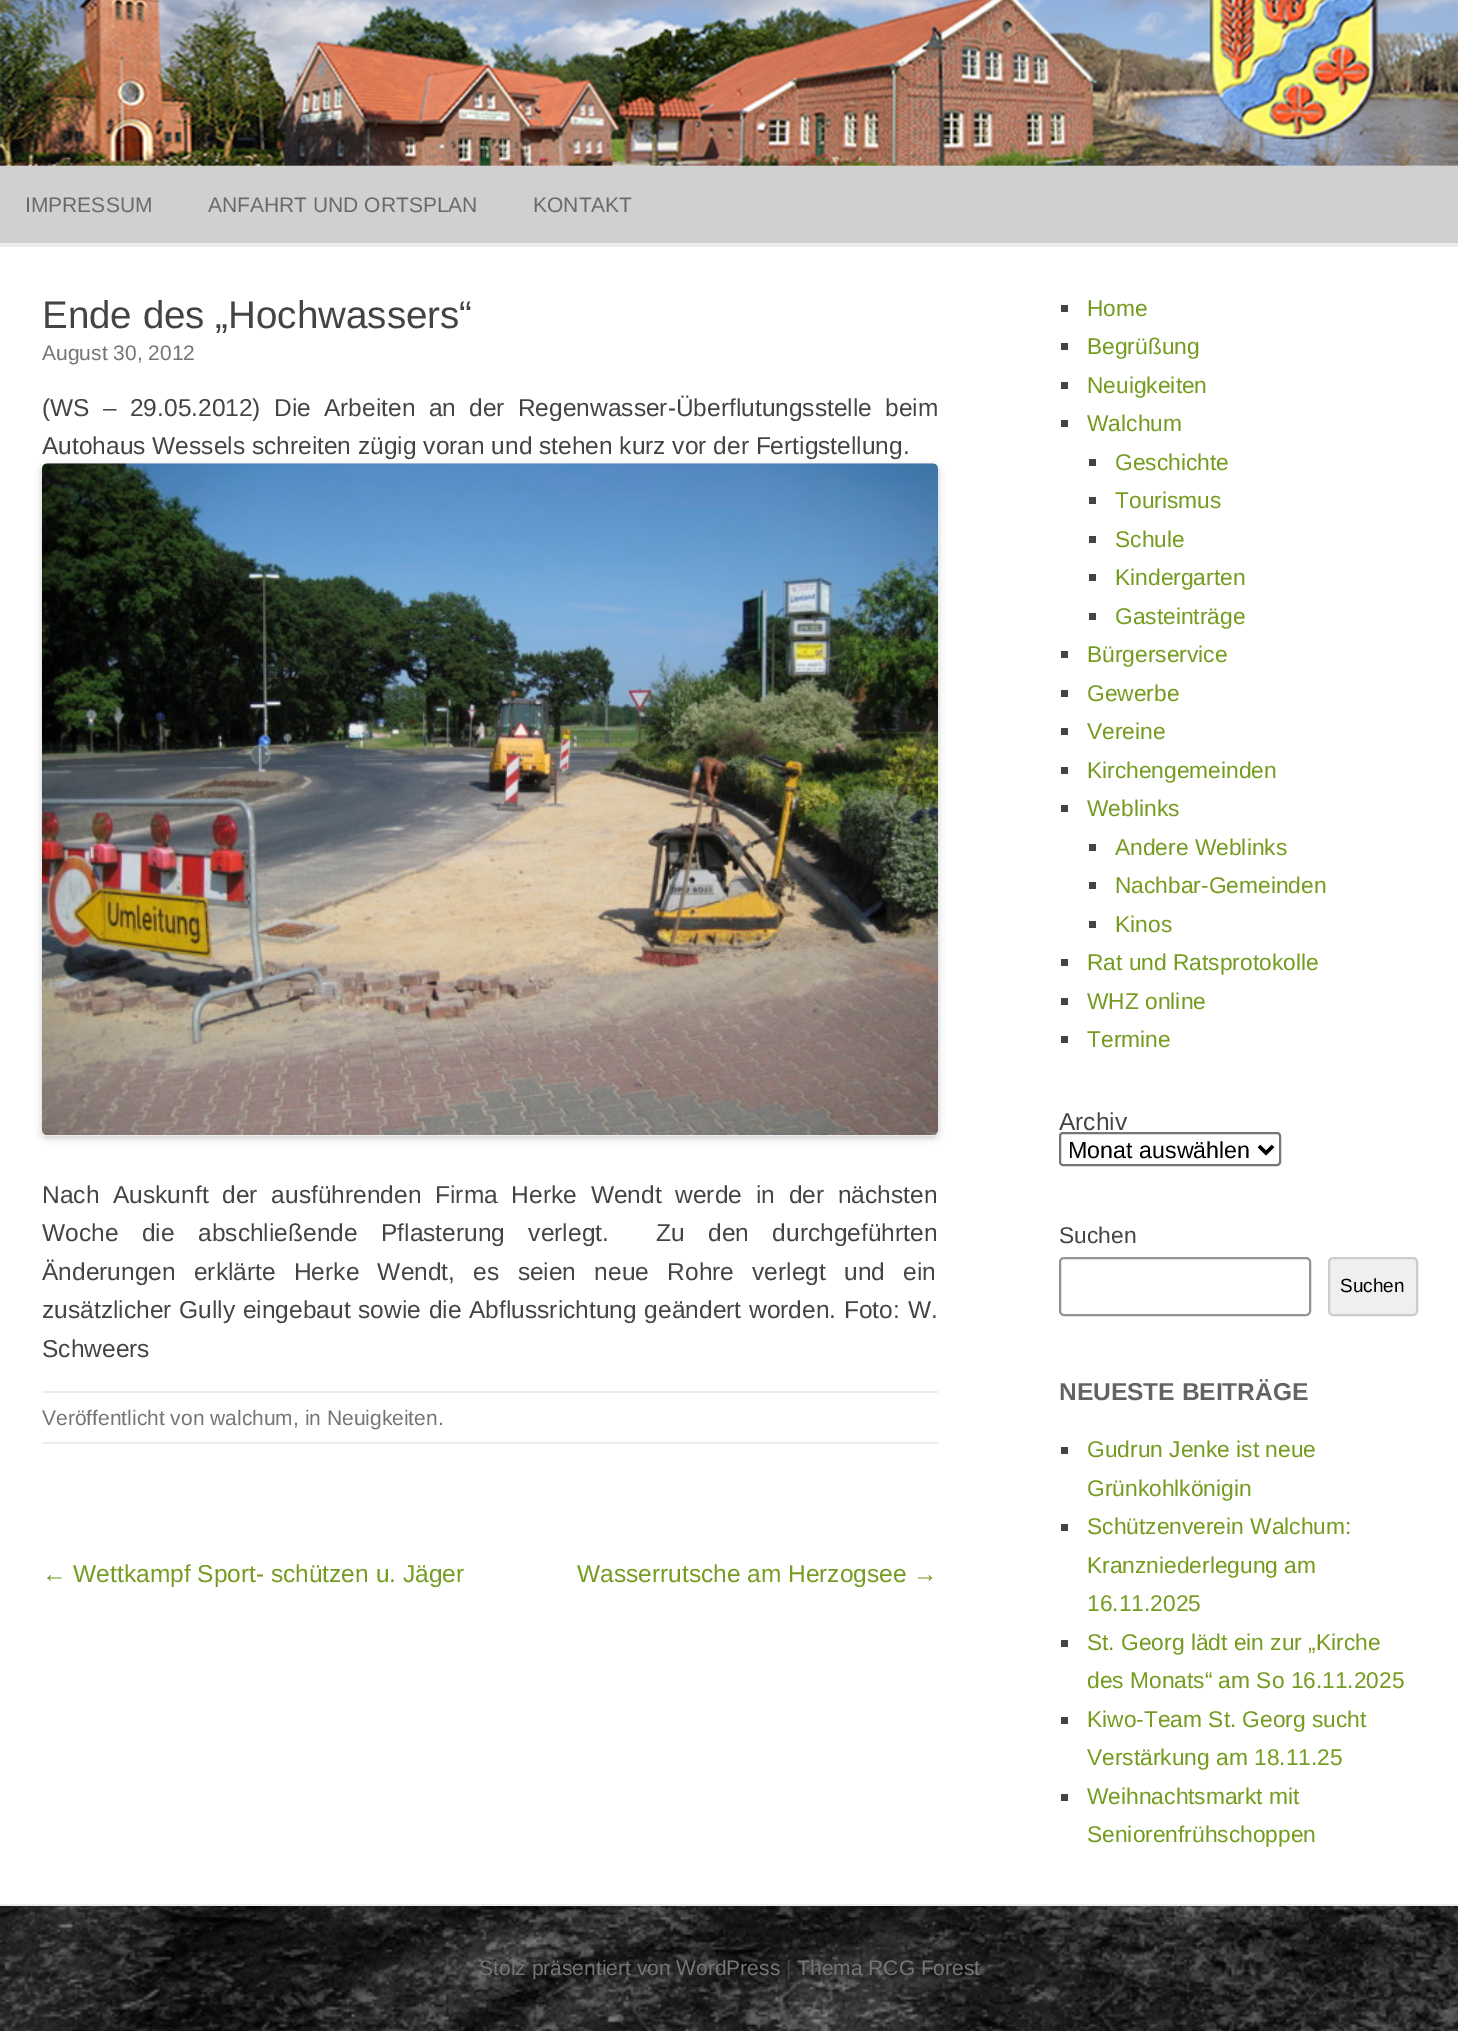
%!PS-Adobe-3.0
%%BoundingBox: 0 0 1458 2031
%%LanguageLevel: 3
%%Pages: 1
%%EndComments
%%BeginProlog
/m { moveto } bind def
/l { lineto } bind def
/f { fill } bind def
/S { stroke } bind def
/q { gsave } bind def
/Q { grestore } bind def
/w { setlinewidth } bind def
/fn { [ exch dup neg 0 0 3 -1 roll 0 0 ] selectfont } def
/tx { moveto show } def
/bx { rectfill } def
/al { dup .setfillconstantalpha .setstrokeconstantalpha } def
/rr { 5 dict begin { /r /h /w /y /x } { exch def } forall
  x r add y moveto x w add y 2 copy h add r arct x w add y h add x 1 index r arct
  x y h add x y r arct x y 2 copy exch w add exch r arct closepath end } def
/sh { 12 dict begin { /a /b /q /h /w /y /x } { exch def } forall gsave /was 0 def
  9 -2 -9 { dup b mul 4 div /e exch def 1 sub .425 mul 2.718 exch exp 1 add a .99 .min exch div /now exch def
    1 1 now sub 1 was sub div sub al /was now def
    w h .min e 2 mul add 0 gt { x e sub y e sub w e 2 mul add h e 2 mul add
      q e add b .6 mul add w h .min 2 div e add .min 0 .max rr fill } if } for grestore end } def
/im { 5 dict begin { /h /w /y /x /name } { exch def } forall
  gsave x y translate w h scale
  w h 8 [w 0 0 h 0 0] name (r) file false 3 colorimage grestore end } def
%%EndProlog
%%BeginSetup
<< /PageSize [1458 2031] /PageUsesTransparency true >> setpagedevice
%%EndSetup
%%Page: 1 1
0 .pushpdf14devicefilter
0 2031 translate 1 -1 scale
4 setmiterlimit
1 setgray
0 0 1458 2031 bx
(image0.raw) 0 1906 1458 125 im
(image1.raw) 0 0 1458 166 im
0.816 setgray
0 166 1458 77 bx
0.929 setgray
0 243 1458 4 bx
/LiberationSans-Regular 21 fn
0.416 setgray
(IMPRESSUM) 25 212 tx
(ANFAHRT UND ORTSPLAN) 208 212 tx
(KONTAKT) 533 212 tx
/LiberationSans-Regular 38.5 fn
0.267 setgray
(Ende des „Hochwassers“) 42 328 tx
/LiberationSans-Regular 21 fn
0.459 setgray
(August 30, 2012) 42 360 tx
/LiberationSans-Regular 24.5 fn
0.267 setgray
42 416 m 6.5 0 32 (\(WS – 29.05.2012\) Die Arbeiten an der Regenwasser-Überflutungsstelle beim) widthshow
0 setgray
42 466 896 672 5 3.5 0.2 sh
0.267 setgray
(Autohaus Wessels schreiten zügig voran und stehen kurz vor der Fertigstellung.) 42 454 tx
(image2.raw) 42 463 896 673 im
42 1203 m 7 0 32 (Nach Auskunft der ausführenden Firma Herke Wendt werde in der nächsten) widthshow
42 1241 m 16.75 0 32 (Woche die abschließende Pflasterung verlegt.  Zu den durchgeführten) widthshow
42 1280 m 11.5 0 32 (Änderungen erklärte Herke Wendt, es seien neue Rohre verlegt und ein) widthshow
42 1318 m 1 0 32 (zusätzlicher Gully eingebaut sowie die Abflussrichtung geändert worden. Foto: W.) widthshow
(Schweers) 42 1357 tx
0.929 setgray
42 1391 896 2 bx
42 1442 896 2 bx
/LiberationSans-Regular 21 fn
0.459 setgray
(Veröffentlicht von walchum, in Neuigkeiten.) 42 1425 tx
/LiberationSans-Regular 24.5 fn
0.459 0.608 0.129 setrgbcolor
(← Wettkampf Sport- schützen u. Jäger) 42 1582 tx
(Wasserrutsche am Herzogsee →) 577 1582 tx
0.267 setgray
1061 305 7 7 bx
/LiberationSans-Regular 22.75 fn
0.459 0.608 0.129 setrgbcolor
(Home) 1087 316 tx
0.267 setgray
1061 343 7 7 bx
0.459 0.608 0.129 setrgbcolor
(Begrüßung) 1087 354 tx
0.267 setgray
1061 382 7 7 bx
0.459 0.608 0.129 setrgbcolor
(Neuigkeiten) 1087 393 tx
0.267 setgray
1061 420 7 7 bx
0.459 0.608 0.129 setrgbcolor
(Walchum) 1087 431 tx
0.267 setgray
1089 459 7 7 bx
0.459 0.608 0.129 setrgbcolor
(Geschichte) 1115 470 tx
0.267 setgray
1089 497 7 7 bx
0.459 0.608 0.129 setrgbcolor
(Tourismus) 1115 508 tx
0.267 setgray
1089 536 7 7 bx
0.459 0.608 0.129 setrgbcolor
(Schule) 1115 547 tx
0.267 setgray
1089 574 7 7 bx
0.459 0.608 0.129 setrgbcolor
(Kindergarten) 1115 585 tx
0.267 setgray
1089 613 7 7 bx
0.459 0.608 0.129 setrgbcolor
(Gasteinträge) 1115 624 tx
0.267 setgray
1061 651 7 7 bx
0.459 0.608 0.129 setrgbcolor
(Bürgerservice) 1087 662 tx
0.267 setgray
1061 690 7 7 bx
0.459 0.608 0.129 setrgbcolor
(Gewerbe) 1087 701 tx
0.267 setgray
1061 728 7 7 bx
0.459 0.608 0.129 setrgbcolor
(Vereine) 1087 739 tx
0.267 setgray
1061 767 7 7 bx
0.459 0.608 0.129 setrgbcolor
(Kirchengemeinden) 1087 778 tx
0.267 setgray
1061 805 7 7 bx
0.459 0.608 0.129 setrgbcolor
(Weblinks) 1087 816 tx
0.267 setgray
1089 844 7 7 bx
0.459 0.608 0.129 setrgbcolor
(Andere Weblinks) 1115 855 tx
0.267 setgray
1089 882 7 7 bx
0.459 0.608 0.129 setrgbcolor
(Nachbar-Gemeinden) 1115 893 tx
0.267 setgray
1089 921 7 7 bx
0.459 0.608 0.129 setrgbcolor
(Kinos) 1115 932 tx
0.267 setgray
1061 959 7 7 bx
0.459 0.608 0.129 setrgbcolor
(Rat und Ratsprotokolle) 1087 970 tx
0.267 setgray
1061 998 7 7 bx
0.459 0.608 0.129 setrgbcolor
(WHZ online) 1087 1009 tx
0.267 setgray
1061 1036 7 7 bx
0.459 0.608 0.129 setrgbcolor
(Termine) 1087 1047 tx
/LiberationSans-Regular 24.5 fn
0.267 setgray
(Archiv) 1059 1130 tx
0.463 setgray
2 w
1060 1133 220 32 3 rr S
0 setgray
3.5 w
1259 1146 m 1266 1153 l 1273 1146 l S
/LiberationSans-Regular 23.25 fn
(Monat auswählen) 1068 1158 tx
/LiberationSans-Regular 22.75 fn
0.267 setgray
(Suchen) 1059 1243 tx
0.58 setgray
2 w
1060 1258 250 57 4 rr S
0.937 setgray
1329 1258 88 57 4 rr q f Q
0.8 setgray
S
/LiberationSans-Regular 19 fn
0 setgray
(Suchen) 1340 1292 tx
/LiberationSans-Bold 24.5 fn
0.388 setgray
(NEUESTE BEITRÄGE) 1059 1400 tx
0.267 setgray
1061 1447 7 7 bx
/LiberationSans-Regular 22.75 fn
0.459 0.608 0.129 setrgbcolor
(Gudrun Jenke ist neue) 1087 1457 tx
(Grünkohlkönigin) 1087 1496 tx
0.267 setgray
1061 1524 7 7 bx
0.459 0.608 0.129 setrgbcolor
(Schützenverein Walchum:) 1087 1534 tx
(Kranzniederlegung am) 1087 1573 tx
(16.11.2025) 1087 1611 tx
0.267 setgray
1061 1640 7 7 bx
0.459 0.608 0.129 setrgbcolor
(St. Georg lädt ein zur „Kirche) 1087 1650 tx
(des Monats“ am So 16.11.2025) 1087 1688 tx
0.267 setgray
1061 1717 7 7 bx
0.459 0.608 0.129 setrgbcolor
(Kiwo-Team St. Georg sucht) 1087 1727 tx
(Verstärkung am 18.11.25) 1087 1765 tx
0.267 setgray
1061 1794 7 7 bx
0.459 0.608 0.129 setrgbcolor
(Weihnachtsmarkt mit) 1087 1804 tx
(Seniorenfrühschoppen) 1087 1842 tx
0.929 setgray
0 1904 1458 2 bx
/LiberationSans-Regular 21 fn
0.459 setgray
(Stolz präsentiert von WordPress) 479 1975 tx
0.267 setgray
(|) 786 1975 tx
0.459 setgray
(Thema RCG Forest) 797 1975 tx
.poppdf14devicefilter showpage
%%EOF
